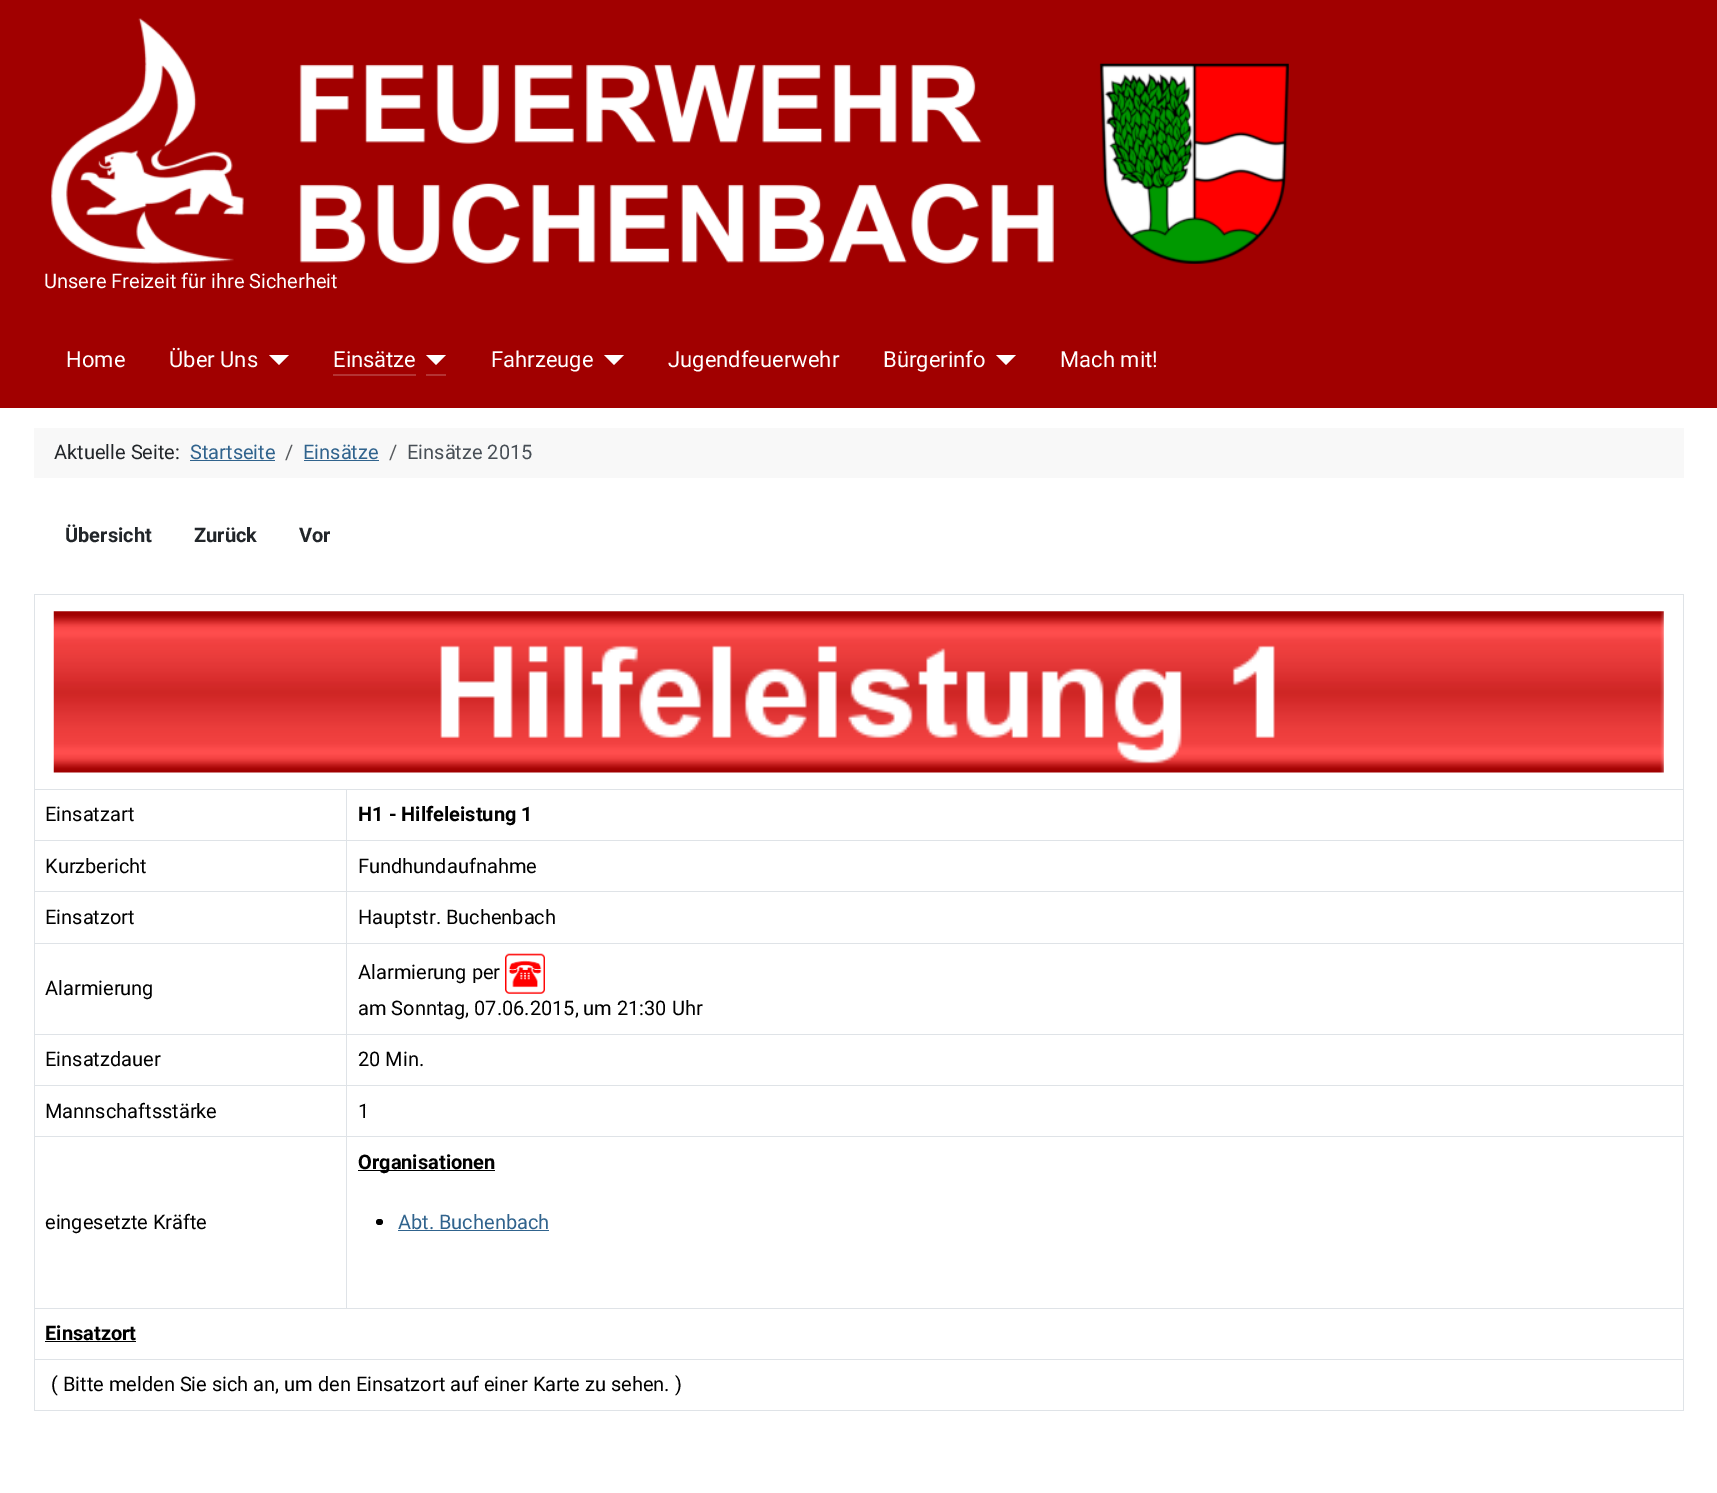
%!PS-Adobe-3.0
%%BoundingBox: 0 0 1717 1493
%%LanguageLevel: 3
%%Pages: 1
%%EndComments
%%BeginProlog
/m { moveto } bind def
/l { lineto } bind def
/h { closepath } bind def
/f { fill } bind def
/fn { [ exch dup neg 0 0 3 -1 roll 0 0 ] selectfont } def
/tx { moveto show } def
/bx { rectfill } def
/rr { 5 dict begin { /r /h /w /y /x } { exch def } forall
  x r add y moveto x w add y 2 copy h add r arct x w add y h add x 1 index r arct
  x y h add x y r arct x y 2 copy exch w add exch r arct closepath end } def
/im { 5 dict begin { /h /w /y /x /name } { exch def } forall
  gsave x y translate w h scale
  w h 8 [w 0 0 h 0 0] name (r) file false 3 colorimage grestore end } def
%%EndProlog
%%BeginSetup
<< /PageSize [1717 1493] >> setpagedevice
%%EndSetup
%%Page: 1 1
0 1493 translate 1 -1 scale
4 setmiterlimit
1 setgray
0 0 1717 1493 bx
0.631 0 0 setrgbcolor
0 0 1717 408 bx
(image0.raw) 51 18 1238 246 im
/Roboto-Regular 20 fn
1 setgray
(Unsere Freizeit für ihre Sicherheit) 44 288 tx
/Roboto-Regular 22 fn
(Home) 66 367 tx
(Über Uns) 169 367 tx
269 355 m 289 355 l 279 365 l h f
(Einsätze) 333 367 tx
0.706 0.2 0.2 setrgbcolor
333 374 83 2 bx
1 setgray
426 355 m 446 355 l 436 365 l h f
0.706 0.2 0.2 setrgbcolor
426 374 20 2 bx
1 setgray
(Fahrzeuge) 491 367 tx
604 355 m 624 355 l 614 365 l h f
(Jugendfeuerwehr) 668 367 tx
(Bürgerinfo) 883 367 tx
996 355 m 1016 355 l 1006 365 l h f
(Mach mit!) 1060 367 tx
0.973 setgray
34 428 1650 50 bx
/Roboto-Regular 20 fn
0.133 0.149 0.165 setrgbcolor
(Aktuelle Seite:) 54 459 tx
0.188 0.388 0.553 setrgbcolor
(Startseite) 190 459 tx
190 460 85 1 bx
0.345 0.357 0.369 setrgbcolor
(/) 285 459 tx
0.188 0.388 0.553 setrgbcolor
(Einsätze) 303 459 tx
304 460 75 1 bx
0.345 0.357 0.369 setrgbcolor
(/) 389 459 tx
0.282 0.31 0.337 setrgbcolor
(Einsätze 2015) 407 459 tx
/Roboto-Bold 20 fn
0.133 0.149 0.165 setrgbcolor
(Übersicht) 65 542 tx
(Zurück) 194 542 tx
(Vor) 299 542 tx
0.875 0.89 0.906 setrgbcolor
34 594 1650 1 bx
1683 594 1 817 bx
34 1410 1650 1 bx
34 594 1 817 bx
(image1.raw) 53 611 1611 162 im
34 789 1650 1 bx
/Roboto-Regular 20 fn
0 setgray
(Einsatzart) 45 821 tx
/Roboto-Bold 20 fn
(H1 - Hilfeleistung 1) 358 821 tx
0.875 0.89 0.906 setrgbcolor
34 840 1650 1 bx
/Roboto-Regular 20 fn
0 setgray
(Kurzbericht) 45 873 tx
(Fundhundaufnahme) 358 873 tx
0.875 0.89 0.906 setrgbcolor
34 891 1650 1 bx
0 setgray
(Einsatzort) 45 924 tx
(Hauptstr. Buchenbach) 358 924 tx
0.875 0.89 0.906 setrgbcolor
34 943 1650 1 bx
0 setgray
(Alarmierung) 45 995 tx
(Alarmierung per) 358 979 tx
(image2.raw) 505 953 40 41 im
(am Sonntag, 07.06.2015, um 21:30 Uhr) 358 1015 tx
0.875 0.89 0.906 setrgbcolor
34 1034 1650 1 bx
0 setgray
(Einsatzdauer) 45 1066 tx
(20 Min.) 358 1066 tx
0.875 0.89 0.906 setrgbcolor
34 1085 1650 1 bx
0 setgray
(Mannschaftsstärke) 45 1118 tx
(1) 358 1118 tx
0.875 0.89 0.906 setrgbcolor
34 1136 1650 1 bx
0 setgray
(eingesetzte Kräfte) 45 1229 tx
0.875 0.89 0.906 setrgbcolor
34 1308 1650 1 bx
346 789 1 520 bx
0 setgray
358 1170 137 1 bx
/Roboto-Bold 20 fn
(Organisationen) 358 1169 tx
376 1219 7 6 3 rr f
/Roboto-Regular 20 fn
0.188 0.388 0.553 setrgbcolor
(Abt. Buchenbach) 398 1229 tx
398 1230 151 1 bx
/Roboto-Bold 20 fn
0 setgray
(Einsatzort) 45 1340 tx
45 1341 91 1 bx
0.875 0.89 0.906 setrgbcolor
34 1359 1650 1 bx
/Roboto-Regular 20 fn
0 setgray
(\( Bitte melden Sie sich an, um den Einsatzort auf einer Karte zu sehen. \)) 51 1391 tx
showpage
%%EOF
